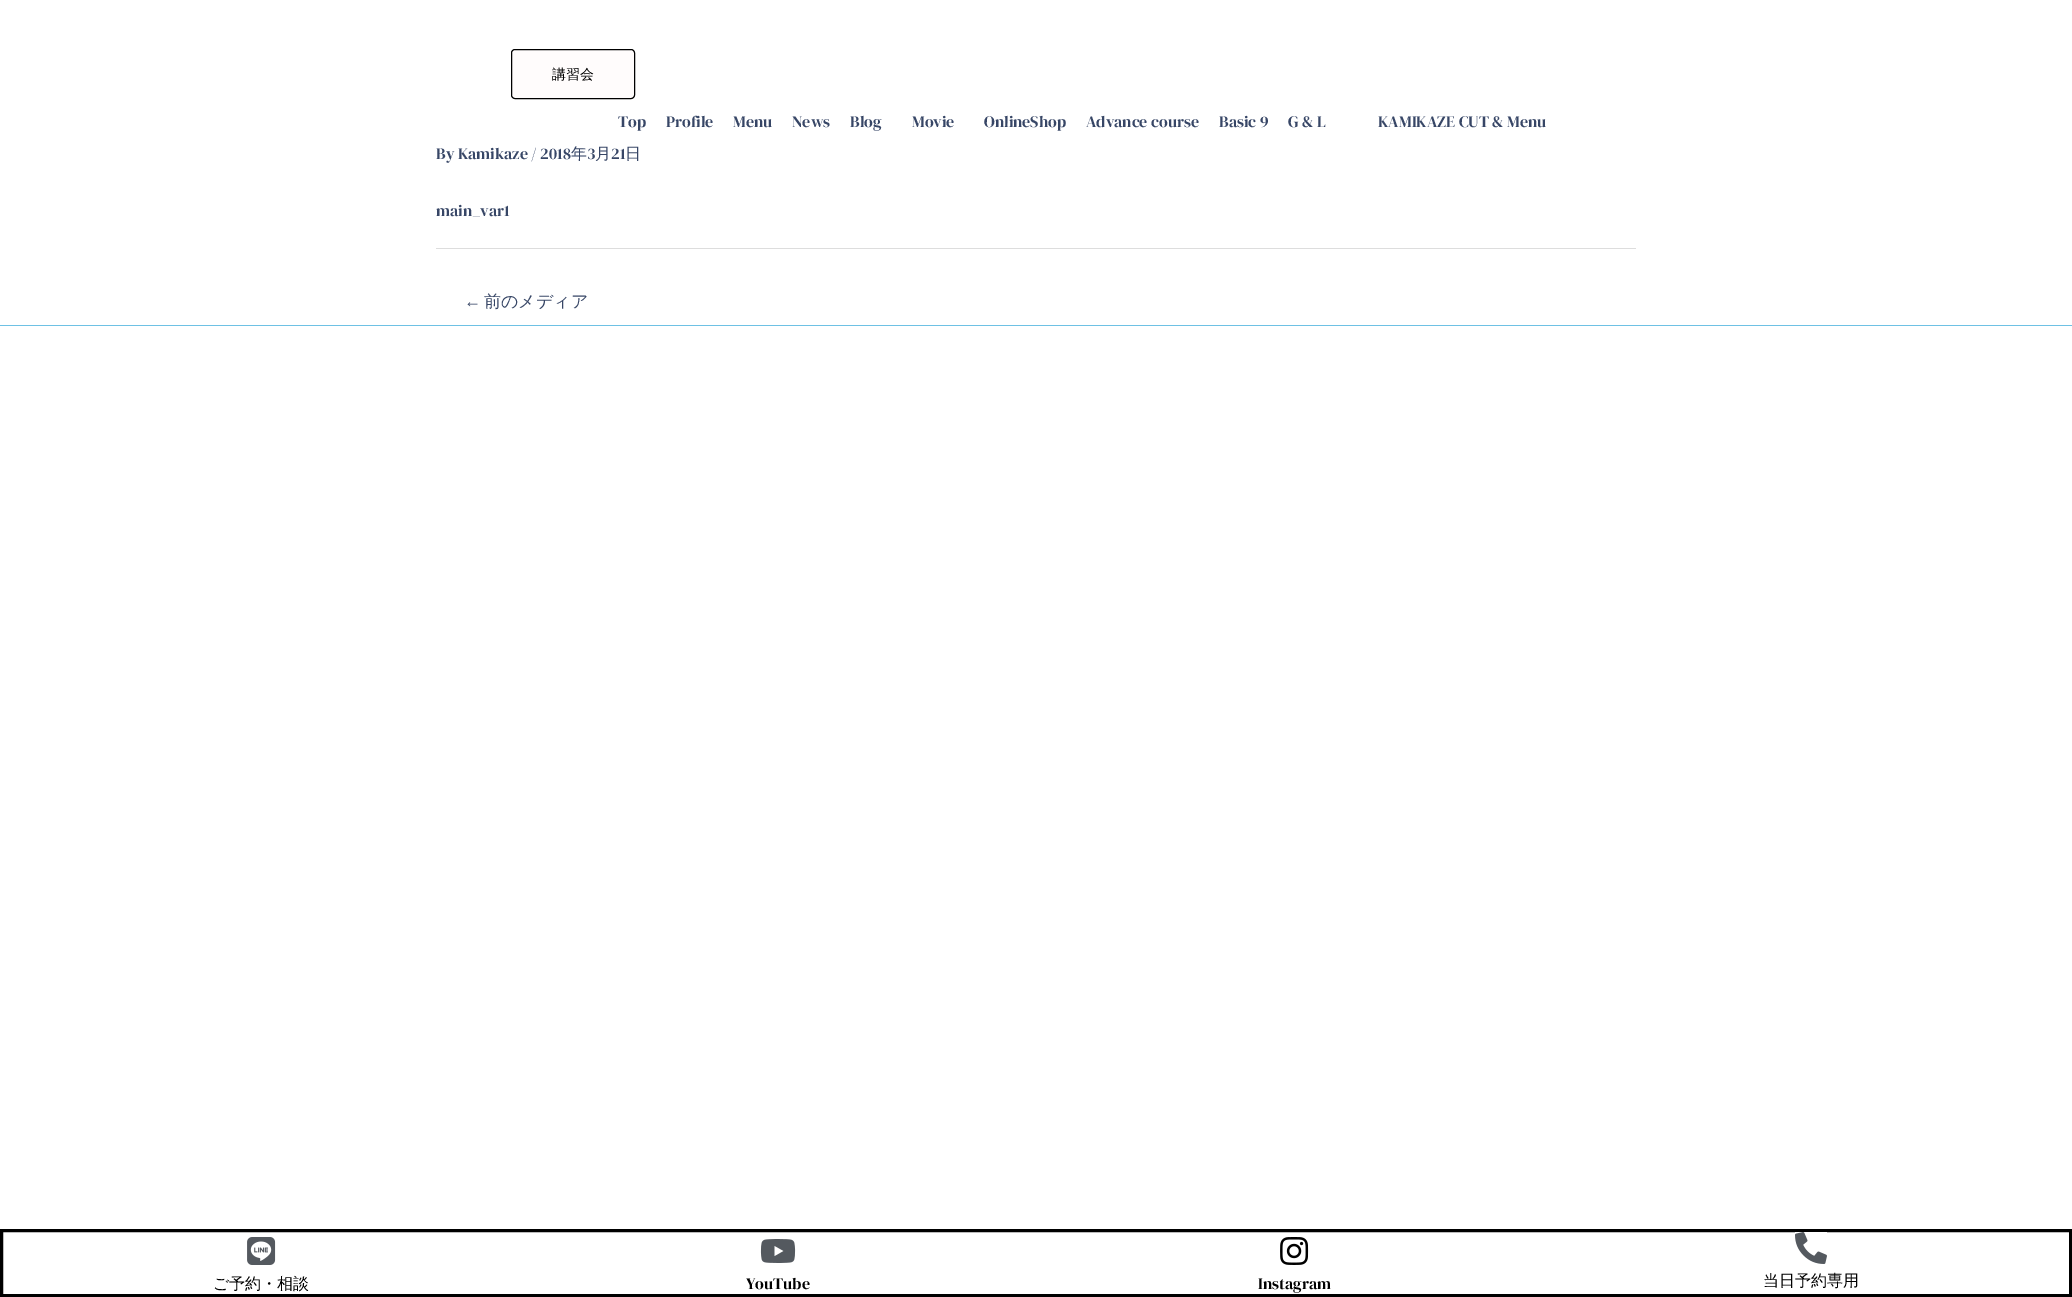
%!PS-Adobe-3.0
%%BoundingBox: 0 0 2072 1297
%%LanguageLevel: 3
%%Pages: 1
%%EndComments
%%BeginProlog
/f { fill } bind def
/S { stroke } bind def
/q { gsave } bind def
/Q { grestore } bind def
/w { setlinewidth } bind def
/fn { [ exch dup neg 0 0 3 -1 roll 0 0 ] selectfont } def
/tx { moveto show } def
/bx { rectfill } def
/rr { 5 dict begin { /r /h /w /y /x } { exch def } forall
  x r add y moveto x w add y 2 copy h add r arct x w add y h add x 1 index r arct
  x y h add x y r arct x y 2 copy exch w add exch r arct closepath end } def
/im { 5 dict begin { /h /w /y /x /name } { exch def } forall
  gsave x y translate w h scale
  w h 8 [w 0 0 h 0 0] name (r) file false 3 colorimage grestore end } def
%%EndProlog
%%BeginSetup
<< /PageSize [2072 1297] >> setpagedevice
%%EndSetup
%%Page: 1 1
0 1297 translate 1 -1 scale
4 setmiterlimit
1 setgray
0 0 2072 1297 bx
1 0.988 0.988 setrgbcolor
511.5 49.5 123 49 3.5 rr q f Q
0 setgray
S
/WenQuanYiZenHei-Medium 14 fn
(講習会) 552 79 tx
/DMSerifDisplay-Regular 16 fn
0.216 0.275 0.4 setrgbcolor
(Top) 618 127 tx
(Profile) 666 127 tx
(Menu) 733 127 tx
(News) 792 127 tx
(Blog) 850 127 tx
(Movie) 912 127 tx
(OnlineShop) 984 127 tx
(Advance course) 1086 127 tx
(Basic 9) 1219 127 tx
(G & L) 1288 127 tx
(KAMIKAZE CUT & Menu) 1378 127 tx
(By Kamikaze / 2018) 436 159 tx
/WenQuanYiZenHei-Medium 16 fn
(年) 571 159 tx
/DMSerifDisplay-Regular 16 fn
(3) 587 159 tx
/WenQuanYiZenHei-Medium 16 fn
(月) 595 159 tx
/DMSerifDisplay-Regular 16 fn
(21) 611 159 tx
/WenQuanYiZenHei-Medium 16 fn
(日) 625 159 tx
/DMSerifDisplay-Regular 16 fn
(main_var1) 436 216 tx
0.867 setgray
436 248 1200 1 bx
/LiberationSerif-Regular 17 fn
0.216 0.275 0.4 setrgbcolor
(←) 464 307 tx
/WenQuanYiZenHei-Medium 17 fn
(前のメディア) 484 307 tx
0.431 0.757 0.894 setrgbcolor
0 325 2072 1 bx
0 setgray
3 w
1.5 1230.5 2069 65 rectstroke
(image0.raw) 247 1237 29 28 im
/WenQuanYiZenHei-Medium 16 fn
(ご予約・相談) 213 1289 tx
(image1.raw) 760 1239 36 24 im
/DMSerifDisplay-Regular 16 fn
(YouTube) 746 1289 tx
(image2.raw) 1280 1237 29 28 im
(Instagram) 1258 1289 tx
(image3.raw) 1795 1232 32 32 im
/WenQuanYiZenHei-Medium 16 fn
(当日予約専用) 1763 1286 tx
showpage
%%EOF
